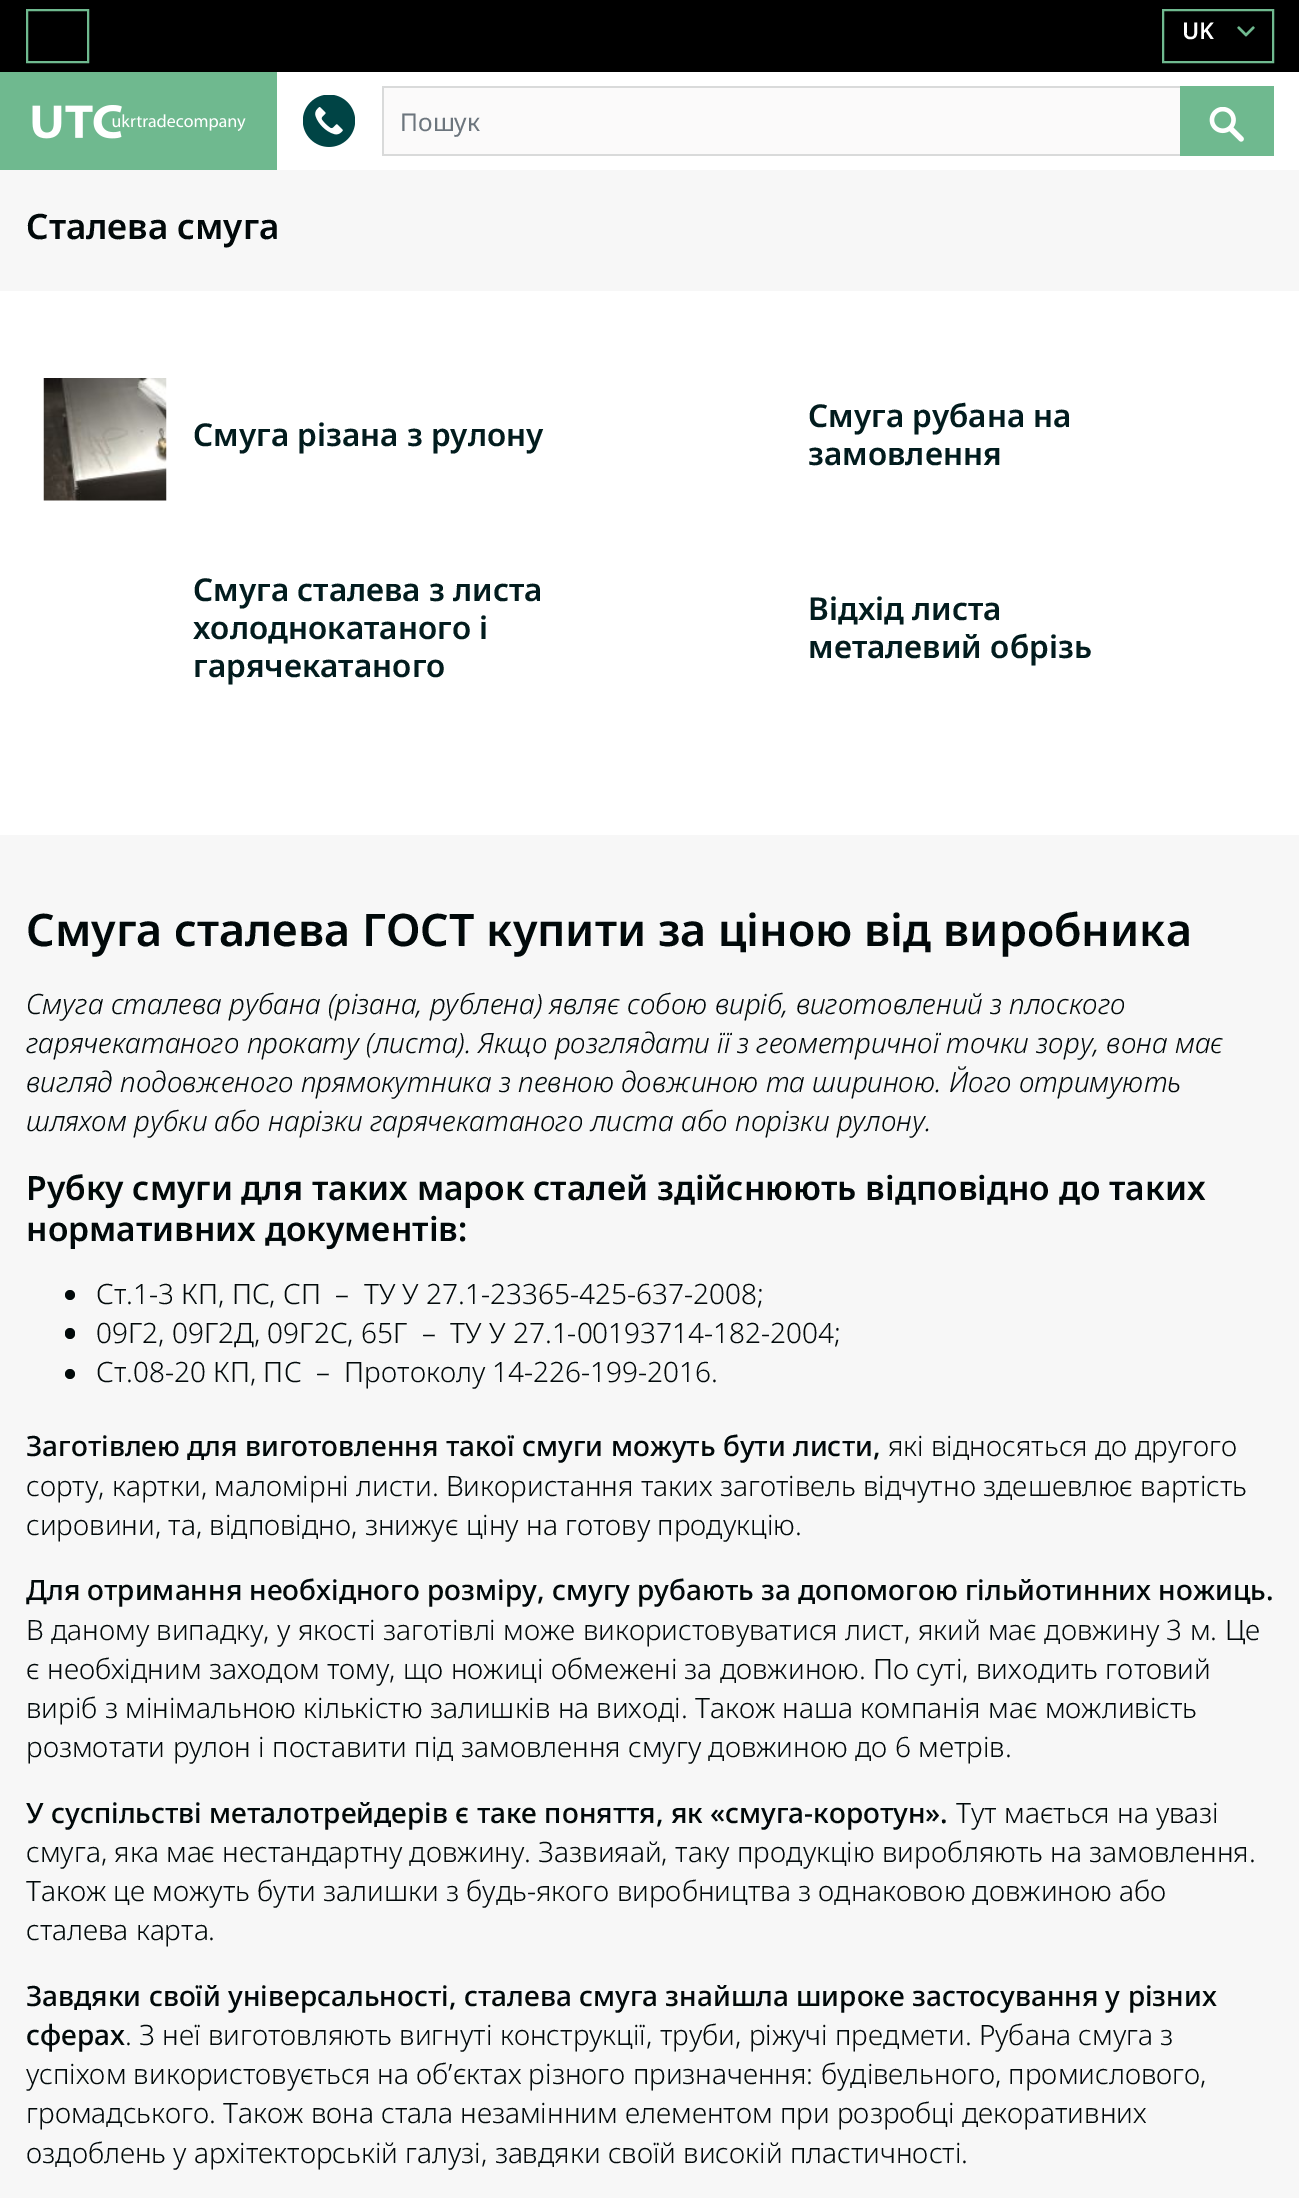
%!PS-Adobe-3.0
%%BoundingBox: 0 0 1299 2198
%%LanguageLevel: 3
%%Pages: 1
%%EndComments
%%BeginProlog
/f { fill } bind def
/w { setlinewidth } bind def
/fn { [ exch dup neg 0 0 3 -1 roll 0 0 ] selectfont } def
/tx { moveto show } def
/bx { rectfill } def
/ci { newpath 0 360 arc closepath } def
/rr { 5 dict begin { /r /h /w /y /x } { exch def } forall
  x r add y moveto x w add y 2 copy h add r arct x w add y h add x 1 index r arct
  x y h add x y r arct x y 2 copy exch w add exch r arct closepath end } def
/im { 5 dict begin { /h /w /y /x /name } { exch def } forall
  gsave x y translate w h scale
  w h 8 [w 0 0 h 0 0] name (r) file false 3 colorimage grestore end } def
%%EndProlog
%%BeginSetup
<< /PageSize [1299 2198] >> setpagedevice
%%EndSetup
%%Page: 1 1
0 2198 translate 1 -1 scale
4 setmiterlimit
1 setgray
0 0 1299 2198 bx
0 setgray
0 0 1299 72 bx
0.435 0.725 0.561 setrgbcolor
2 w
27 10 61 52 rectstroke
1163 10 110 52 rectstroke
/NotoSans-SemiBold 23 fn
1 setgray
(UK) 1182 39 tx
(image0.raw) 1237 26 18 11 im
0.435 0.725 0.561 setrgbcolor
0 72 277 98 bx
(image1.raw) 32 105 214 34 im
(image2.raw) 303 95 52 52 im
0.984 0.98 0.98 setrgbcolor
384 88 796 66 bx
0.851 0.855 0.855 setrgbcolor
382 86 798 2 bx
382 154 798 2 bx
382 86 2 70 bx
/NotoSans-Regular 24.5 fn
0.424 0.459 0.49 setrgbcolor
(Пошук) 400 131 tx
0.435 0.725 0.561 setrgbcolor
1180 86 94 70 bx
(image3.raw) 1209 107 35 35 im
0.969 setgray
0 170 1299 2028 bx
/NotoSans-SemiBold 35 fn
0.004 0.035 0.039 setrgbcolor
(Сталева смуга) 26 239 tx
1 setgray
0 291 1299 544 bx
(image4.raw) 43 378 124 123 im
/NotoSans-SemiBold 31.5 fn
0.008 0.11 0.118 setrgbcolor
(Смуга різана з рулону) 193 446 tx
(Смуга рубана на) 808 427 tx
(замовлення) 808 465 tx
(Смуга сталева з листа) 193 601 tx
(холоднокатаного і) 193 639 tx
(гарячекатаного) 193 677 tx
(Відхід листа) 808 620 tx
(металевий обрізь) 808 658 tx
/NotoSans-SemiBold 44.8 fn
0.004 0.035 0.039 setrgbcolor
(Смуга сталева ГОСТ купити за ціною від виробника) 26 946 tx
/NotoSans-LightItalic 28 fn
(Смуга сталева рубана \(різана, рублена\) являє собою виріб, виготовлений з плоского) 26 1014 tx
(гарячекатаного прокату \(листа\). Якщо розглядати її з геометричної точки зору, вона має) 26 1053 tx
(вигляд подовженого прямокутника з певною довжиною та шириною. Його отримують) 26 1092 tx
(шляхом рубки або нарізки гарячекатаного листа або порізки рулону.) 26 1131 tx
/NotoSans-SemiBold 33.6 fn
(Рубку смуги для таких марок сталей здійснюють відповідно до таких) 26 1200 tx
(нормативних документів:) 26 1241 tx
70 1295 5 ci f
/NotoSans-Light 28 fn
(Ст.1-3 КП, ПС, СП  –  ТУ У 27.1-23365-425-637-2008;) 96 1304 tx
65 1328 10 11 5 rr f
(09Г2, 09Г2Д, 09Г2С, 65Г  –  ТУ У 27.1-00193714-182-2004;) 96 1343 tx
70 1374 5 ci f
(Ст.08-20 КП, ПС  –  Протоколу 14-226-199-2016.) 96 1382 tx
/NotoSans-Medium 28 fn
(Заготівлею для виготовлення такої смуги можуть бути листи,) 26 1456 tx
/NotoSans-Light 28 fn
(які відносяться до другого) 888 1456 tx
(сорту, картки, маломірні листи. Використання таких заготівель відчутно здешевлює вартість) 26 1496 tx
(сировини, та, відповідно, знижує ціну на готову продукцію.) 26 1535 tx
/NotoSans-Medium 28 fn
(Для отримання необхідного розміру, смугу рубають за допомогою гільйотинних ножиць.) 26 1600 tx
/NotoSans-Light 28 fn
(В даному випадку, у якості заготівлі може використовуватися лист, який має довжину 3 м. Це) 26 1640 tx
(є необхідним заходом тому, що ножиці обмежені за довжиною. По суті, виходить готовий) 26 1679 tx
(виріб з мінімальною кількістю залишків на виході. Також наша компанія має можливість) 26 1718 tx
(розмотати рулон і поставити під замовлення смугу довжиною до 6 метрів.) 26 1757 tx
/NotoSans-Medium 28 fn
(У суспільстві металотрейдерів є таке поняття, як «смуга-коротун».) 26 1823 tx
/NotoSans-Light 28 fn
(Тут мається на увазі) 956 1823 tx
(смуга, яка має нестандартну довжину. Зазвияай, таку продукцію виробляють на замовлення.) 26 1862 tx
(Також це можуть бути залишки з будь-якого виробництва з однаковою довжиною або) 26 1901 tx
(сталева карта.) 26 1940 tx
/NotoSans-Medium 28 fn
(Завдяки своїй універсальності, сталева смуга знайшла широке застосування у різних) 26 2006 tx
(сферах) 26 2045 tx
/NotoSans-Light 28 fn
(. З неї виготовляють вигнуті конструкції, труби, ріжучі предмети. Рубана смуга з) 125 2045 tx
(успіхом використовується на об’єктах різного призначення: будівельного, промислового,) 26 2084 tx
(громадського. Також вона стала незамінним елементом при розробці декоративних) 26 2123 tx
(оздоблень у архітекторській галузі, завдяки своїй високій пластичності.) 26 2163 tx
showpage
%%EOF
